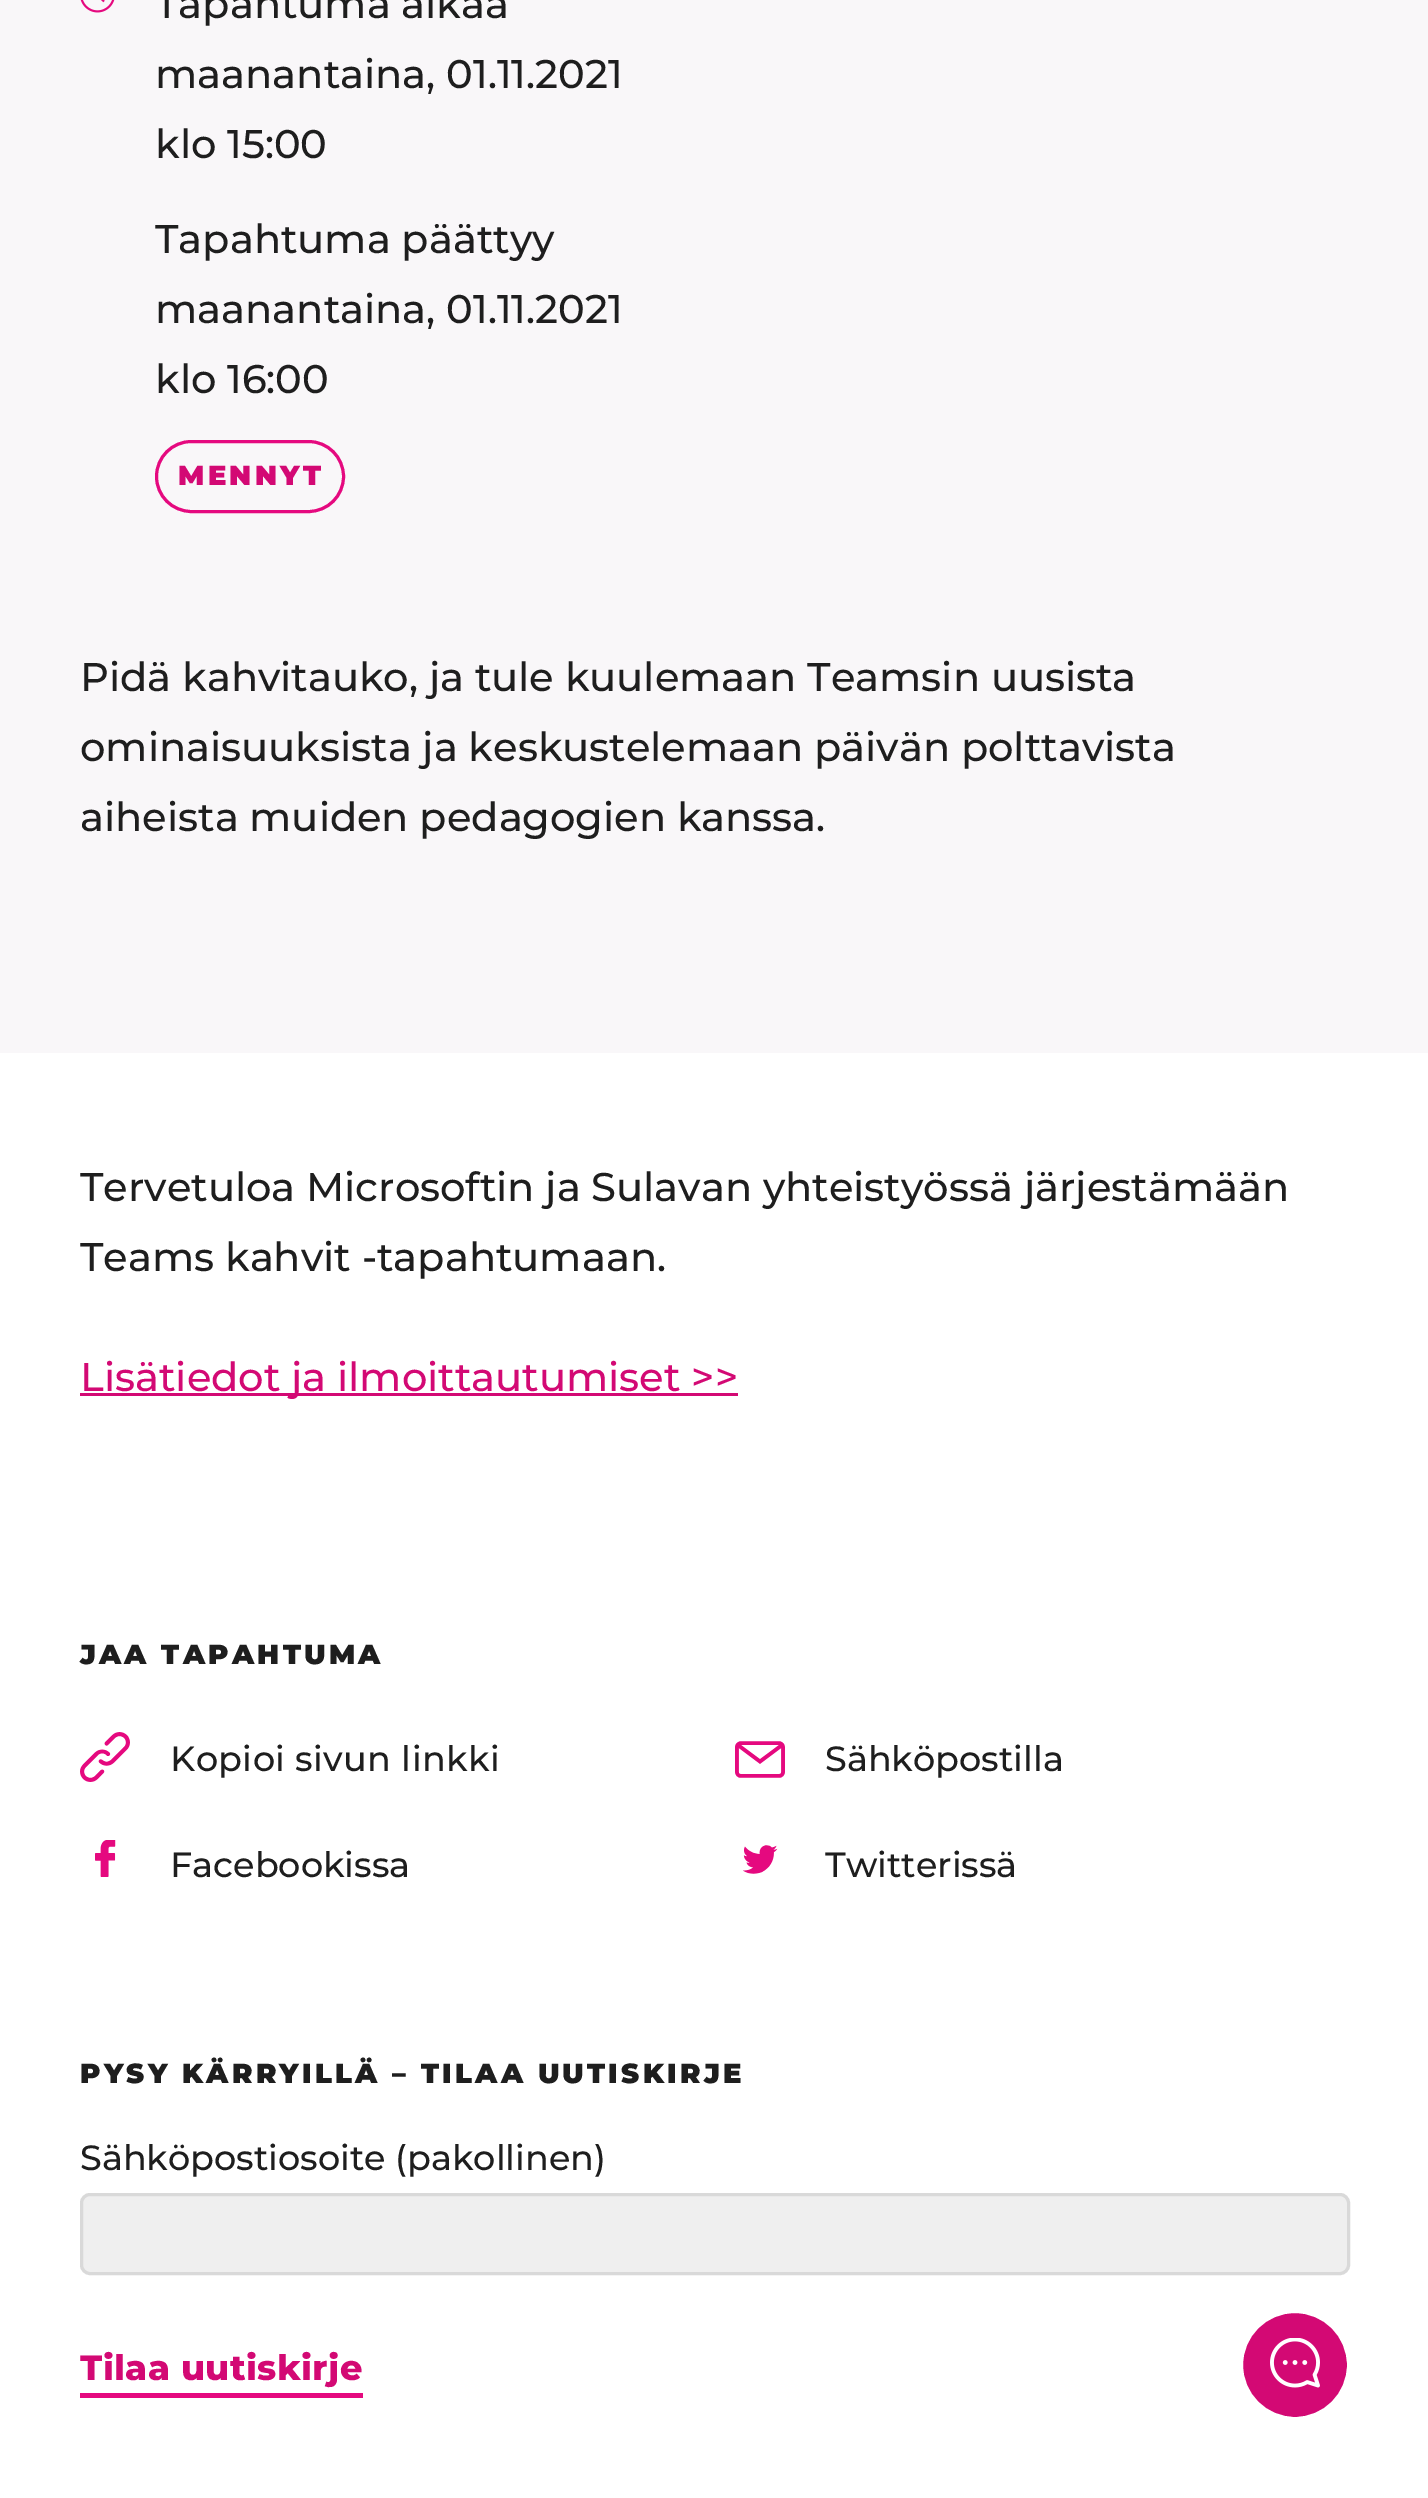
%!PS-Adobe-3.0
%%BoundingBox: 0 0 1428 2498
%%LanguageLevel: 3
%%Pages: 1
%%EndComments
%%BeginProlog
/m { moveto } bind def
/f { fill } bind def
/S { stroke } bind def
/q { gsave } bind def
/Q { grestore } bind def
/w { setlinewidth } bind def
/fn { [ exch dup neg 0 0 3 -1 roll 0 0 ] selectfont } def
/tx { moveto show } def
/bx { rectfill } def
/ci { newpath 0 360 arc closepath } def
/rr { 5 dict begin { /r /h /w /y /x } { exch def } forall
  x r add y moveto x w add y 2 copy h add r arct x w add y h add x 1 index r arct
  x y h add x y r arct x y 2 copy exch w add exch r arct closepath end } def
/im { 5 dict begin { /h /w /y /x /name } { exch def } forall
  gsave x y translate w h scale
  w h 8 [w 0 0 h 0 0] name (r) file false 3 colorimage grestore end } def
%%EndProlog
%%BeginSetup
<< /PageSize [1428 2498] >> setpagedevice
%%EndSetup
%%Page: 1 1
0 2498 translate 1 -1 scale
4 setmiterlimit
1 setgray
0 0 1428 2498 bx
0.976 0.969 0.976 setrgbcolor
0 0 1428 1053 bx
(image0.raw) 80 0 35 13 im
/Montserrat-Medium 40 fn
0.118 setgray
(Tapahtuma alkaa) 155 18 tx
(maanantaina, 01.11.2021) 155 88 tx
(klo 15:00) 155 158 tx
(Tapahtuma päättyy) 155 253 tx
(maanantaina, 01.11.2021) 155 323 tx
(klo 16:00) 155 393 tx
0.898 0.035 0.498 setrgbcolor
3 w
156.5 441.5 187 70 35 rr S
/Montserrat-Black 27.6 fn
0.827 0.035 0.455 setrgbcolor
178 485 m 3.2 0 (MENNYT) ashow
/Montserrat-Medium 40 fn
0.118 setgray
(Pidä kahvitauko, ja tule kuulemaan Teamsin uusista) 80 691 tx
(ominaisuuksista ja keskustelemaan päivän polttavista) 80 761 tx
(aiheista muiden pedagogien kanssa.) 80 831 tx
(Tervetuloa Microsoftin ja Sulavan yhteistyössä järjestämään) 80 1201 tx
(Teams kahvit -tapahtumaan.) 80 1271 tx
0.827 0.035 0.455 setrgbcolor
80 1393 658 3 bx
(Lisätiedot ja ilmoittautumiset >>) 80 1391 tx
/Montserrat-Black 27.6 fn
0.118 setgray
80 1664 m 3.2 0 (JAA TAPAHTUMA) ashow
(image1.raw) 80 1732 50 50 im
/Montserrat-Medium 35 fn
170 1771 m 0.4 0 (Kopioi sivun linkki) ashow
(image2.raw) 735 1741 50 37 im
(Sähköpostilla) 825 1771 tx
(image3.raw) 95 1840 21 37 im
(Facebookissa) 170 1877 tx
(image4.raw) 743 1845 35 29 im
(Twitterissä) 825 1877 tx
/Montserrat-Black 27.6 fn
80 2083 m 3.2 0 (PYSY KÄRRYILLÄ – TILAA UUTISKIRJE) ashow
/Montserrat-Medium 35 fn
(Sähköpostiosoite \(pakollinen\)) 80 2170 tx
0.937 setgray
81.5 2194.5 1267 79 8.5 rr q f Q
0.851 setgray
S
/Montserrat-ExtraBold 35 fn
0.827 0.035 0.455 setrgbcolor
80 2380 m 0.4 0 (Tilaa uutiskirje) ashow
0.898 0.035 0.498 setrgbcolor
80 2393 283 5 bx
0.827 0.035 0.455 setrgbcolor
1295 2365 53.5 ci q f Q
1 setgray
S
(image5.raw) 1270 2338 50 50 im
showpage
%%EOF
